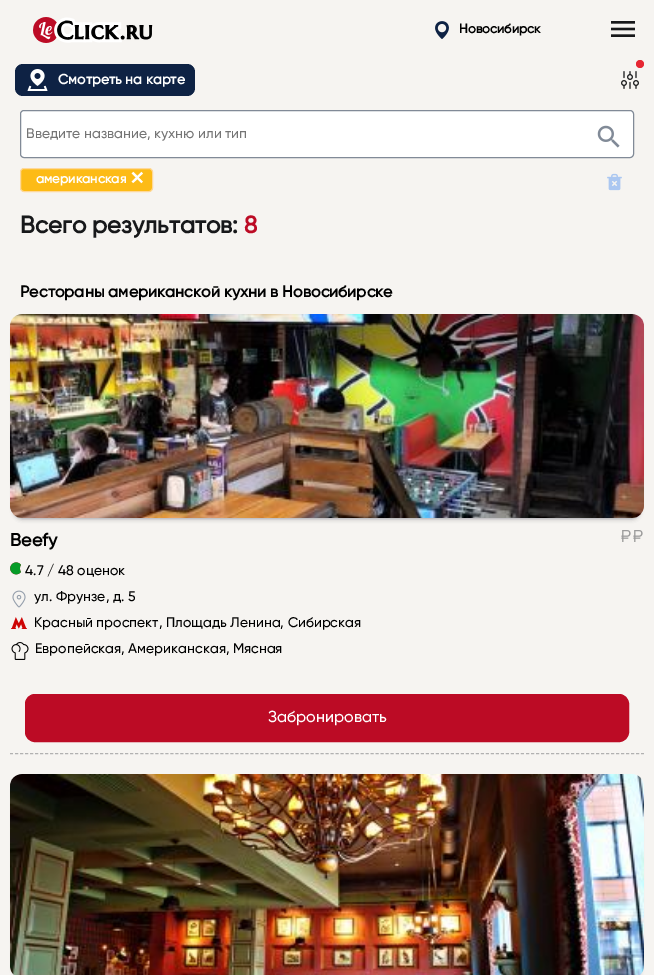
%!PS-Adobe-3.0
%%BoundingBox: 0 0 654 975
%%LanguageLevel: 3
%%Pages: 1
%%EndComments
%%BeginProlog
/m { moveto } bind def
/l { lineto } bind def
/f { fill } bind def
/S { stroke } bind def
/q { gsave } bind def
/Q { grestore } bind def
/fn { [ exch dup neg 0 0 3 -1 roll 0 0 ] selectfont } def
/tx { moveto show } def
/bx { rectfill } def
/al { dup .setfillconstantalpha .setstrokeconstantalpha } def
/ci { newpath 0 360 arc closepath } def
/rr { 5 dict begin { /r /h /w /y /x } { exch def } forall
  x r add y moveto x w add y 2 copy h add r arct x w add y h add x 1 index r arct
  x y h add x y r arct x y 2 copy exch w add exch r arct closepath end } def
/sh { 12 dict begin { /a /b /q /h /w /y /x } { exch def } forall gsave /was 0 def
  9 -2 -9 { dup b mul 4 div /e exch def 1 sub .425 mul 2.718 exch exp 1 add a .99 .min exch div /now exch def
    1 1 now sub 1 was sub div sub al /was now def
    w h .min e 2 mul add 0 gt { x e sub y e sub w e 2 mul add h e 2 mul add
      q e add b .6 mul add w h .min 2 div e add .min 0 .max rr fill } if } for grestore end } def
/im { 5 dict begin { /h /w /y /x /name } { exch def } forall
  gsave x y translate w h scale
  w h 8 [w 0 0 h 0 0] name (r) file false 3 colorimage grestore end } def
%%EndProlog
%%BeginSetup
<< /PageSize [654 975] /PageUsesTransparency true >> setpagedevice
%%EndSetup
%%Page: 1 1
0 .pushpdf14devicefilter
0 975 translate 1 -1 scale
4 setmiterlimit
0.965 0.957 0.945 setrgbcolor
0 0 654 975 bx
(image0.raw) 33 17 120 26 im
(image1.raw) 435 21 14 18 im
/Gilroy-Bold 13 fn
0 setgray
(Новосибирск) 459 33 tx
(image2.raw) 611 21 24 16 im
0.055 0.133 0.267 setrgbcolor
15 64 180 32 8 rr f
(image3.raw) 27 69 21 22 im
/Gilroy-Bold 14 fn
1 setgray
(Смотреть на карте) 58 84 tx
0.902 0.149 0.196 setrgbcolor
640 64 4 ci f
(image4.raw) 621 71 18 18 im
1 setgray
20.5 110.5 613 47 3.5 rr q f Q
0.506 0.541 0.592 setrgbcolor
S
/Gilroy-Medium 14 fn
0.459 setgray
(Введите название, кухню или тип) 26 138 tx
(image5.raw) 597 125 23 23 im
0.992 0.733 0.086 setrgbcolor
20.5 168.5 132 23 3.5 rr q f Q
0.996 0.847 0.604 setrgbcolor
S
/Gilroy-Bold 13 fn
1 setgray
(американская) 36 183 tx
/Gilroy-Medium 30 fn
(×) 130 188 tx
(image6.raw) 607 173 15 18 im
/Gilroy-Bold 24 fn
0.09 0.094 0.102 setrgbcolor
(Всего результатов:) 20 233 tx
0.737 0.043 0.145 setrgbcolor
(8) 244 233 tx
/Gilroy-Bold 16 fn
0 setgray
(Рестораны американской кухни в Новосибирске) 20 297 tx
0.694 setgray
[3 2.01] 0 setdash
10 753.5 m 644 753.5 l S
0 setgray
15 324 624 194 7 2.5 0.3 sh
0.196 0.196 0.365 setrgbcolor
15 324 624 194 7 2.5 0.25 sh
(image7.raw) 10 314 634 204 im
/Gilroy-Bold 18 fn
0 setgray
(Beefy) 10 546 tx
(image8.raw) 621 530 10 12 im
(image8.raw) 633 530 10 12 im
(image9.raw) 10 562 11 13 im
/Gilroy-Medium 14 fn
(4.7 / 48 оценок) 25 575 tx
(image10.raw) 12 590 14 18 im
(ул. Фрунзе, д. 5) 34 601 tx
(image11.raw) 11 617 16 12 im
(Красный проспект, Площадь Ленина, Сибирская) 34 627 tx
(image12.raw) 11 642 18 18 im
(Европейская, Американская, Мясная) 35 653 tx
0.737 0.043 0.145 setrgbcolor
25.5 694.5 603 47 9.5 rr q f Q
[] 0 setdash
S
/Gilroy-Medium 16 fn
1 setgray
(Забронировать) 268 722 tx
0 setgray
15 784 624 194 7 2.5 0.3 sh
0.196 0.196 0.365 setrgbcolor
15 784 624 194 7 2.5 0.25 sh
(image13.raw) 10 774 634 201 im
.poppdf14devicefilter showpage
%%EOF
